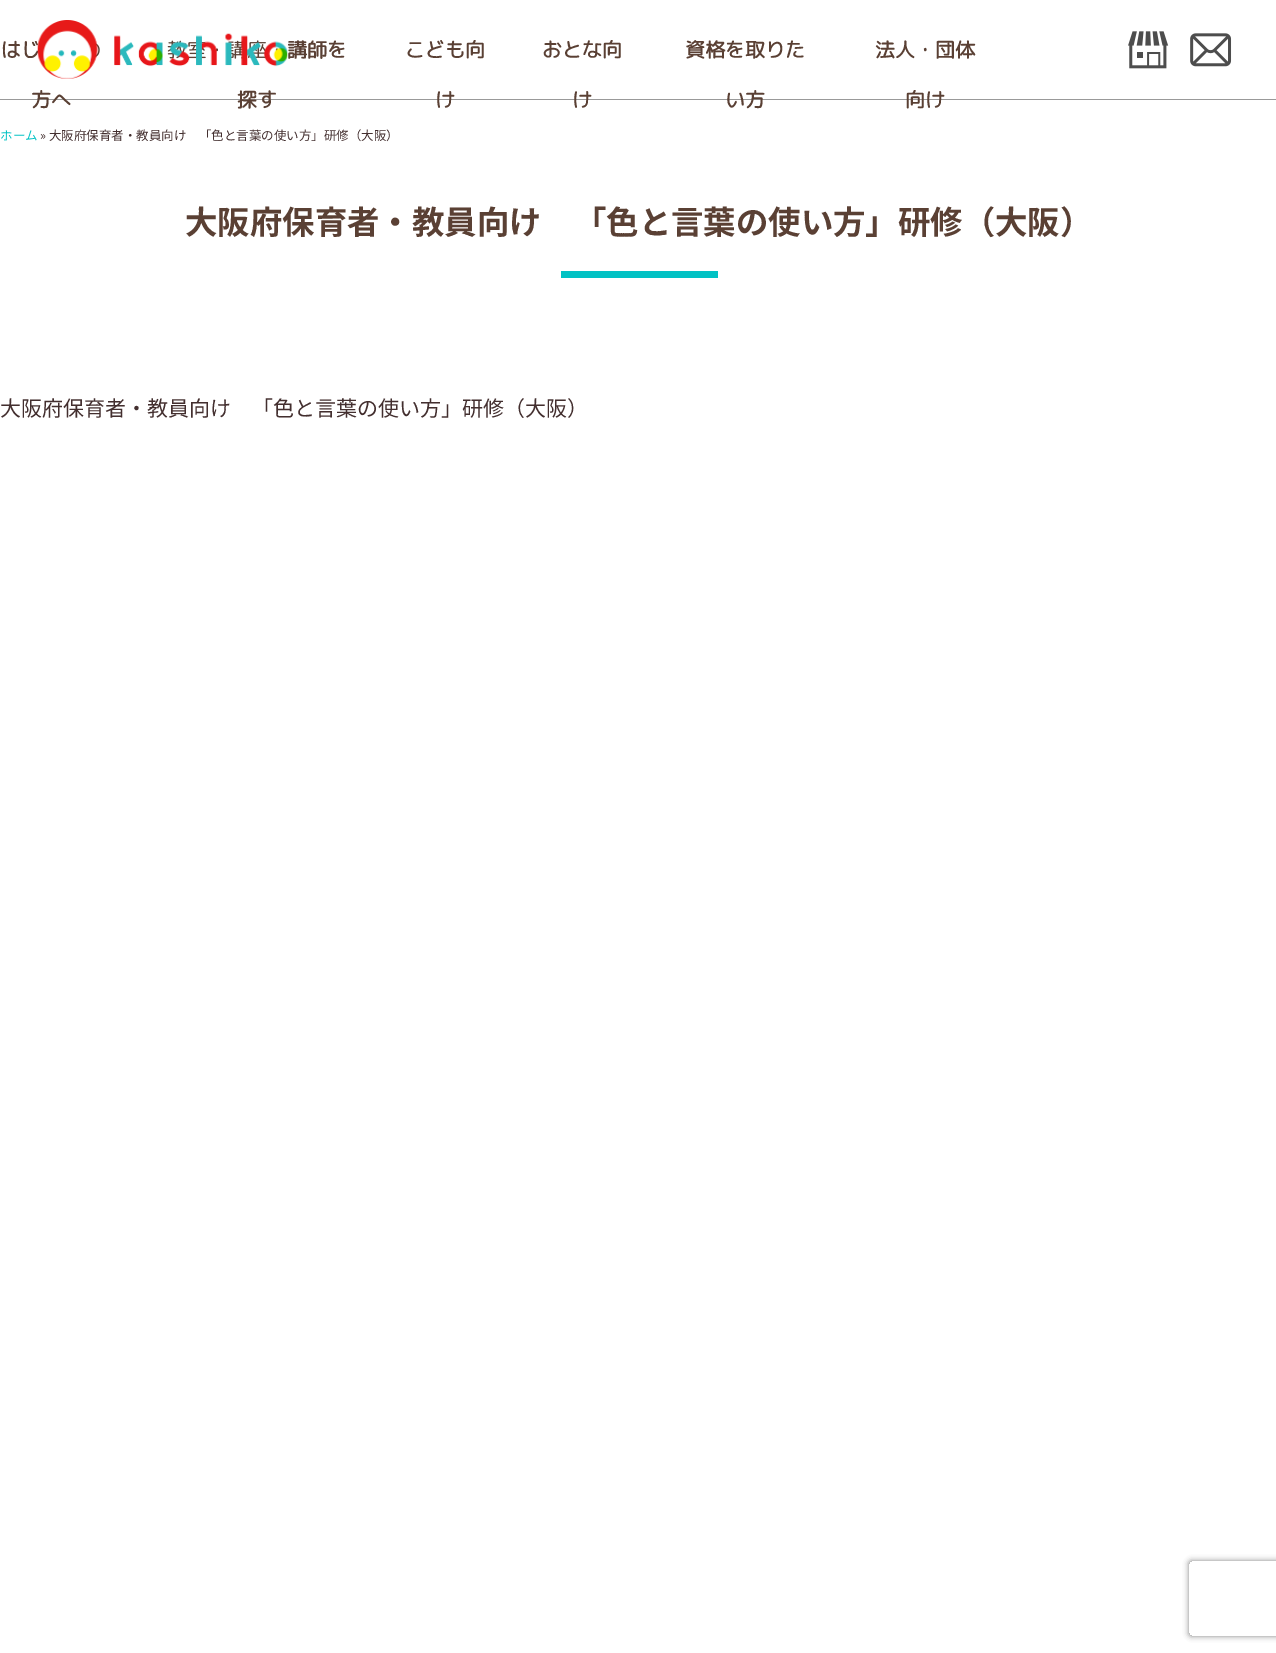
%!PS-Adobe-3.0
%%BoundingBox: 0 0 1276 1653
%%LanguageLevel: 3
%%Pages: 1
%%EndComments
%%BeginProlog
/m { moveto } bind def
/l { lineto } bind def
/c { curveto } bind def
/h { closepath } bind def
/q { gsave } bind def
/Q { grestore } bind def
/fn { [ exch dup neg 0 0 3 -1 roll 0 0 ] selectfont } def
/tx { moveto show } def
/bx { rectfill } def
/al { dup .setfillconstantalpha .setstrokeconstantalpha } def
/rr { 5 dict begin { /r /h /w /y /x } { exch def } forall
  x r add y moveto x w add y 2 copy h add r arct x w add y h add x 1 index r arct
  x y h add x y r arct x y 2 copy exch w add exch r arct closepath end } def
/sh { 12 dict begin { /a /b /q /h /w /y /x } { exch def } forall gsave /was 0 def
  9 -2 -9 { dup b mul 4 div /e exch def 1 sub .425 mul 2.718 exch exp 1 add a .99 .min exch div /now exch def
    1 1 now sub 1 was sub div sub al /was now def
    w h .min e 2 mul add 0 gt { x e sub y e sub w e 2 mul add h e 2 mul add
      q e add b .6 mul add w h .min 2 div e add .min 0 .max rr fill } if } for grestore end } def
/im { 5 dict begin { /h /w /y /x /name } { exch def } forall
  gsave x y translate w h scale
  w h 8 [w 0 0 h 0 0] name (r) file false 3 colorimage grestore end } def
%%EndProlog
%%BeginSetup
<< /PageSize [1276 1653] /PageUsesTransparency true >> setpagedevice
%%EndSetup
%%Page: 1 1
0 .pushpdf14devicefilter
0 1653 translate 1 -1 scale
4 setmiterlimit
1 setgray
0 0 1276 1653 bx
0.6 setgray
0 99 1276 1 bx
/RoundedMplus1c-Bold 20 fn
0.353 0.251 0.204 setrgbcolor
(はじ) 1 57 tx
(・) 207 57 tx
(講師を) 287 57 tx
(image0.raw) 37 20 251 59 im
(方へ) 31 107 tx
(探す) 237 107 tx
(こども向) 405 57 tx
(け) 435 107 tx
(おとな向) 542 57 tx
(け) 572 107 tx
(資格を取りた) 685 57 tx
(い方) 725 107 tx
(法人・団体) 875 57 tx
(向け) 905 107 tx
(image1.raw) 1128 31 41 38 im
(image2.raw) 1190 33 42 34 im
/NotoSansCJKJP-Regular 12.5 fn
0.008 0.761 0.769 setrgbcolor
(ホーム) 0 140 tx
0.263 0.184 0.184 setrgbcolor
(» 大阪府保育者・教員向け　「色と言葉の使い方」研修（大阪）) 40 140 tx
/NotoSansCJKJP-Bold 32.4 fn
0.353 0.251 0.204 setrgbcolor
(大阪府保育者・教員向け　「色と言葉の使い方」研修（大阪）) 185 234 tx
0.008 0.761 0.769 setrgbcolor
561 271 157 7 bx
/NotoSansJP-Thin 21 fn
0.263 0.184 0.184 setrgbcolor
(大阪府保育者・教員向け　「色と言葉の使い方」研修（大阪）) 0 416 tx
q
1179 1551 m 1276 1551 l 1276 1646 l 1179 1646 l h 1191.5 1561 m 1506.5 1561 l 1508 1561 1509 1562 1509 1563.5 c 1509 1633.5 l 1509 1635 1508 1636 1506.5 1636 c 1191.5 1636 l 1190 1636 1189 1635 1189 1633.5 c 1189 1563.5 l 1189 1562 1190 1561 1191.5 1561 c h eoclip newpath
0.502 setgray
1189 1561 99 75 2.5 3 1 sh
Q
.poppdf14devicefilter showpage
%%EOF
